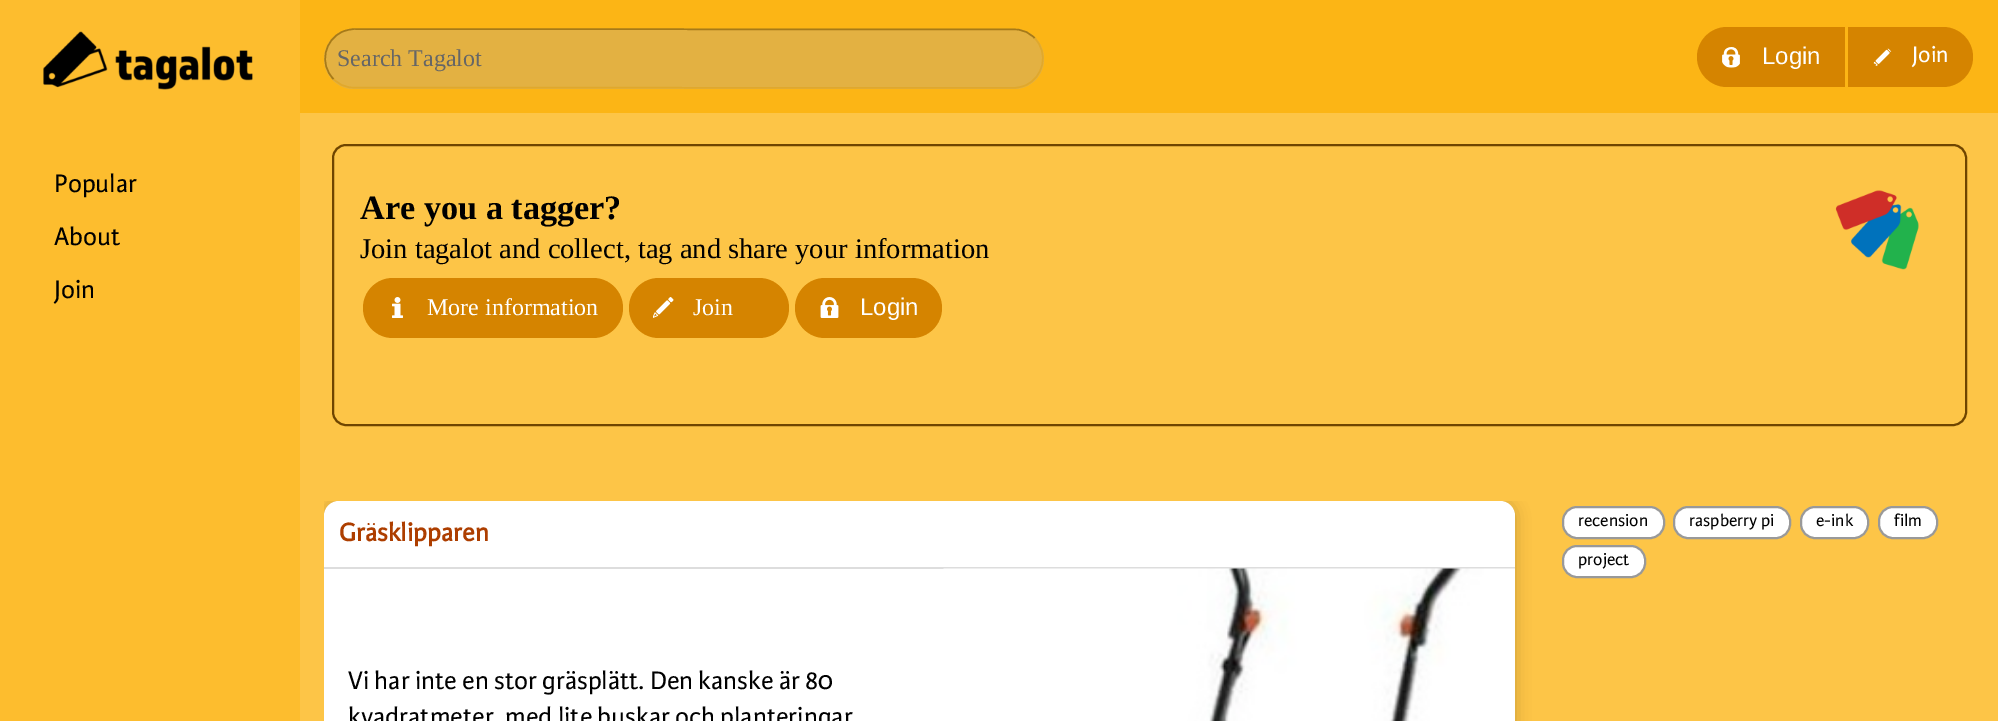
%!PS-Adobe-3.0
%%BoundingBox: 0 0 1998 721
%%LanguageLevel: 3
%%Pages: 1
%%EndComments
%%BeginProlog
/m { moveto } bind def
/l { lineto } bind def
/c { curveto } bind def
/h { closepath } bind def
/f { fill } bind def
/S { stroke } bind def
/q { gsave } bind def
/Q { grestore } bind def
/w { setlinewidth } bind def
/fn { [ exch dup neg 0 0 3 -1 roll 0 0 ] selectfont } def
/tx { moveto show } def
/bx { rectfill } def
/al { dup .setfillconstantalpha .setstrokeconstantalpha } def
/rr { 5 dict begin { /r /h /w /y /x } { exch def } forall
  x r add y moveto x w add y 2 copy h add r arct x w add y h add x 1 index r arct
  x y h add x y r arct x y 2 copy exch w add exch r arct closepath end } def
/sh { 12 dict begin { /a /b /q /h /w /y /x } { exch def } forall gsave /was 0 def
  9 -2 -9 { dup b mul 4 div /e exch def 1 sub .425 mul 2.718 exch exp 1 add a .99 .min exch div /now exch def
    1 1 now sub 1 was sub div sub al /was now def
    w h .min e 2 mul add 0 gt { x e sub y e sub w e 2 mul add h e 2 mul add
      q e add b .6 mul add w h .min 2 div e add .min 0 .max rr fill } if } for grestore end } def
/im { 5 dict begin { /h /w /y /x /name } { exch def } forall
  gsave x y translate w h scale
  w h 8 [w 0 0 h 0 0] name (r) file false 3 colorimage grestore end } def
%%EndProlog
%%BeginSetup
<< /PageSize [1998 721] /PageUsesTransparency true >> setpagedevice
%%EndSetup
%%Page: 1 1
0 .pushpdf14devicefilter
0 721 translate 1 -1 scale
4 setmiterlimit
0.992 0.773 0.278 setrgbcolor
0 0 1998 721 bx
0.988 0.71 0.082 setrgbcolor
300 0 1698 113 bx
0.89 0.694 0.259 setrgbcolor
324 29 720 60 30 rr f
0.878 0.659 0.173 setrgbcolor
1.5 w
1034.5 38 m 1049 52.5 1044 77.5 1025 85.5 c 1021.5 87 1018 87.5 1014 88 c 351 87.5 l 344.5 87 338 84 333.5 79 c S
0.651 0.478 0.098 setrgbcolor
333.5 79 m 319 64.5 324 39.5 343 31.5 c 346.5 30 350 29.5 354 29 c 1017 29.5 l 1023.5 30 1030 33 1034.5 38 c S
/LiberationSerif-Regular 24 fn
0.4 setgray
(Search Tagalot) 337 66 tx
0.835 0.518 0 setrgbcolor
1727 27 m 1845 27 l 1845 87 l 1727 87 l 1710.5 87 1697 73.5 1697 57 c 1697 40.5 1710.5 27 1727 27 c h f
(image0.raw) 1722 47 18 21 im
/LiberationSans-Regular 24 fn
1 setgray
(Login) 1762 64 tx
0.835 0.518 0 setrgbcolor
1848 27 m 1943 27 l 1959.5 27 1973 40.5 1973 57 c 1973 73.5 1959.5 87 1943 87 c 1848 87 l h f
(image1.raw) 1873 48 19 18 im
/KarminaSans-Regular 24 fn
1 setgray
(Join) 1912 62 tx
0.992 0.741 0.18 setrgbcolor
0 0 300 721 bx
(image2.raw) 43 31 210 59 im
/KarminaSans-Regular 27 fn
0 setgray
(Popular) 54 192 tx
(About) 54 245 tx
(Join) 54 298 tx
0.435 0.271 0 setrgbcolor
2 w
333 145 1633 280 13 rr S
/LiberationSerif-Bold 34.25 fn
0 setgray
(Are you a tagger?) 360 219 tx
/LiberationSerif-Regular 28.5 fn
(Join tagalot and collect, tag and share your information) 360 258 tx
0.835 0.518 0 setrgbcolor
363 278 260 60 30 rr f
(image3.raw) 392 297 11 21 im
/LiberationSerif-Regular 24 fn
1 setgray
(More information) 427 315 tx
0.835 0.518 0 setrgbcolor
629 278 160 60 30 rr f
(image4.raw) 653 297 21 21 im
1 setgray
(Join) 693 315 tx
0.835 0.518 0 setrgbcolor
795 278 147 60 30 rr f
(image5.raw) 820 297 19 21 im
/LiberationSans-Regular 24 fn
1 setgray
(Login) 860 315 tx
(image6.raw) 1835 190 84 80 im
q
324 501 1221 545 rectclip
0 setgray
324 501 1191 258 15 7.5 0.2 sh
Q
324 501 1191 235 15 rr f
0.867 setgray
324 567 1191 2 bx
/KarminaSans-Bold 27 fn
0.678 0.243 0 setrgbcolor
(Gräsklipparen) 339 541 tx
/KarminaSans-Regular 27 fn
0 setgray
(Vi har inte en stor gräsplätt. Den kanske är 80) 348 689 tx
(kvadratmeter, med lite buskar och planteringar) 348 725 tx
(image7.raw) 943 568 572 153 im
1 setgray
1563 507 101 31 14 rr q f Q
0.6 setgray
S
/KarminaSans-Regular 18 fn
0 setgray
(recension) 1578 526 tx
1 setgray
1674 507 116 31 14 rr q f Q
0.6 setgray
S
0 setgray
(raspberry pi) 1689 526 tx
1 setgray
1801 507 67 31 14 rr q f Q
0.6 setgray
S
0 setgray
(e-ink) 1816 526 tx
1 setgray
1879 507 58 31 14 rr q f Q
0.6 setgray
S
0 setgray
(film) 1894 526 tx
1 setgray
1563 546 82 31 14 rr q f Q
0.6 setgray
S
0 setgray
(project) 1578 565 tx
.poppdf14devicefilter showpage
%%EOF
